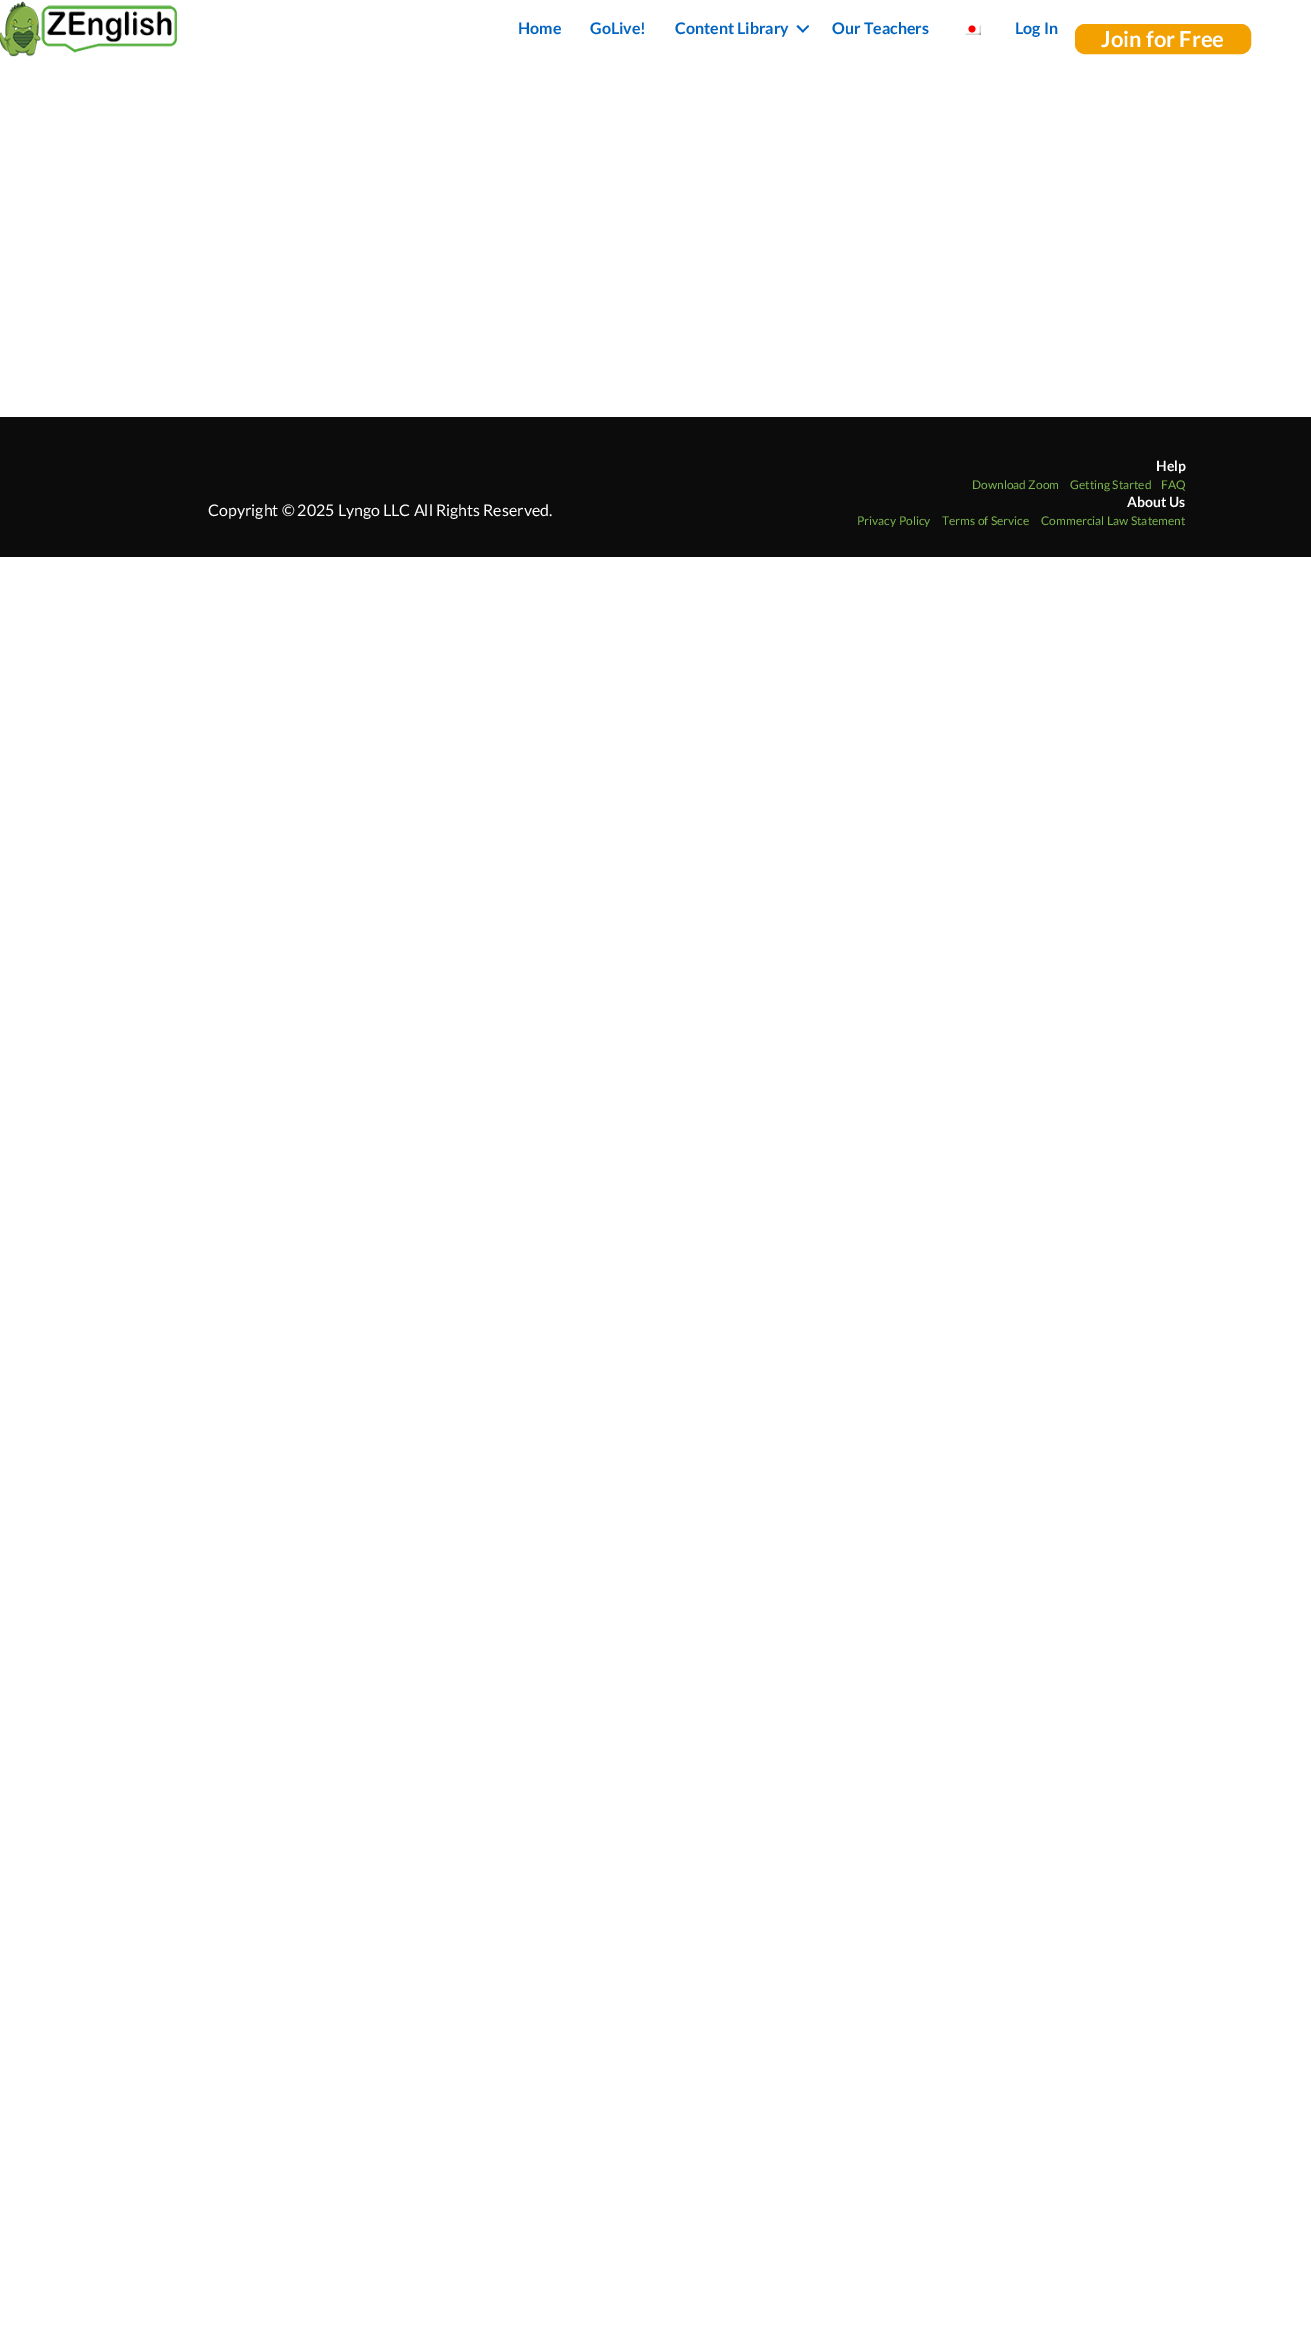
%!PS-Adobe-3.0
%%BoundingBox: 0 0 1311 2342
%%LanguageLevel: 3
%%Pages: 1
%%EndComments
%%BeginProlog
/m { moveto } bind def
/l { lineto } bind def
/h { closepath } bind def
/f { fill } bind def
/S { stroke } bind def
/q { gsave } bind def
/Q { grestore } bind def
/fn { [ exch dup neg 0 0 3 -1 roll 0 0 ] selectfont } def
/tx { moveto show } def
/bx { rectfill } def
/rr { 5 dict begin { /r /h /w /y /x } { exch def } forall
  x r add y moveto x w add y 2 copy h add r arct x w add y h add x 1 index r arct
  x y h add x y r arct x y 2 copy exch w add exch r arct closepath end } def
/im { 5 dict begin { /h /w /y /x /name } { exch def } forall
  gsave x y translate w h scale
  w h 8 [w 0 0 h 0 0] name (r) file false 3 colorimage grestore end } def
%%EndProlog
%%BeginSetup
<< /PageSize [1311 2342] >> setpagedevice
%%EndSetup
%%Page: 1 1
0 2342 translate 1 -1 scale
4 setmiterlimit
1 setgray
0 0 1311 2342 bx
(image0.raw) 0 1 177 56 im
/Lato-Bold 16 fn
0 0.392 0.753 setrgbcolor
(Home) 518 34 tx
(GoLive!) 590 34 tx
(Content Library) 675 34 tx
808 25 m 809 26.5 l 803 32.5 l 801.5 31.5 l h f
798 25 m 804 31.5 l 803 32.5 l 796.5 26.5 l h f
(Our Teachers) 832 34 tx
(image1.raw) 965 25 16 10 im
(Log In) 1015 34 tx
0.949 0.631 0 setrgbcolor
1075.5 24.5 175 29 9.5 rr q f Q
S
/Lato-Bold 22 fn
1 setgray
(Join for Free) 1101 47 tx
0.047 setgray
0 417 1311 140 bx
/Lato-Regular 16 fn
1 setgray
(Copyright © 2025 Lyngo LLC All Rights Reserved.) 208 516 tx
/Lato-Bold 14 fn
(Help) 1156 471 tx
/Lato-Regular 12 fn
0.482 0.71 0.306 setrgbcolor
(Download Zoom) 972 489 tx
(Getting Started) 1070 489 tx
(FAQ) 1161 489 tx
/Lato-Bold 14 fn
1 setgray
(About Us) 1127 507 tx
/Lato-Regular 12 fn
0.482 0.71 0.306 setrgbcolor
(Privacy Policy) 857 525 tx
(Terms of Service) 942 525 tx
(Commercial Law Statement) 1041 525 tx
showpage
%%EOF
